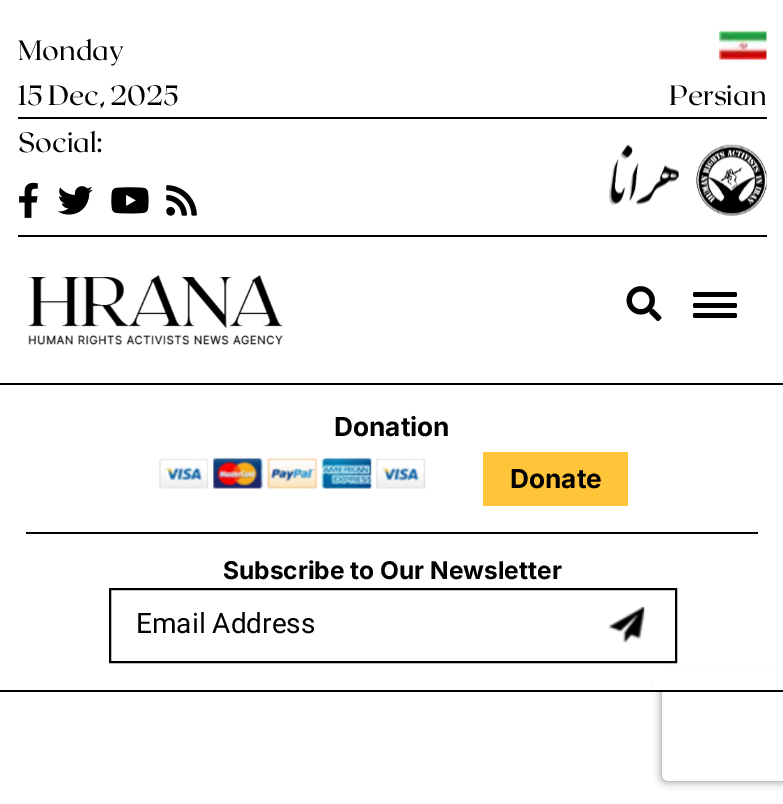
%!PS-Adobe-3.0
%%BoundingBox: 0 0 783 804
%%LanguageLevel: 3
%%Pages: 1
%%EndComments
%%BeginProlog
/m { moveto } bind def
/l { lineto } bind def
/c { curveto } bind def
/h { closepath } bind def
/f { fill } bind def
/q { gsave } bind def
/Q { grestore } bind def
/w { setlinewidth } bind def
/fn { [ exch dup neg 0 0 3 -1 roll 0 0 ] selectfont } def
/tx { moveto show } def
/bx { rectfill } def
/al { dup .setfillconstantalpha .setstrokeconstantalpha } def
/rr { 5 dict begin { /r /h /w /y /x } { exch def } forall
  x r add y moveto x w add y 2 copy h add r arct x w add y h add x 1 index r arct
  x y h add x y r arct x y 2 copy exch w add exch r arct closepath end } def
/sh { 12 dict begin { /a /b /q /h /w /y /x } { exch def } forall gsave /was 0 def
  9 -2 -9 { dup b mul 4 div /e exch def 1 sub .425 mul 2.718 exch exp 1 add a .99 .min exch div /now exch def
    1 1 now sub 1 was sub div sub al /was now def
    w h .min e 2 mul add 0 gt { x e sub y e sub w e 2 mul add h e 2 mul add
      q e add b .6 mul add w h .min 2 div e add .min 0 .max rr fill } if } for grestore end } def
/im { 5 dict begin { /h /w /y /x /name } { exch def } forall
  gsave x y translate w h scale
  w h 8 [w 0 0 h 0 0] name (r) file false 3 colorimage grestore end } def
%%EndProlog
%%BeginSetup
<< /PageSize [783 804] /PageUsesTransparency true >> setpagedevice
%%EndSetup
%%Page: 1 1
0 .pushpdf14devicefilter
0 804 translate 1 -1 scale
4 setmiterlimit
1 setgray
0 0 783 804 bx
q
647 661 m 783 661 l 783 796 l 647 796 l h 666 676 m 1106 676 l 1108 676 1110 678 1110 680 c 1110 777 l 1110 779 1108 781 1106 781 c 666 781 l 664 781 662 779 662 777 c 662 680 l 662 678 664 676 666 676 c h eoclip newpath
0.502 setgray
662 676 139 105 4 4.5 1 sh
Q
653 667 130 23 bx
0 setgray
18 235 749 2 bx
18 117 749 2 bx
/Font-Regular 28 fn
(Monday) 18 60 tx
(15 Dec, 2025) 18 105 tx
(image0.raw) 719 31 48 29 im
(Persian) 669 105 tx
(Social:) 18 152 tx
(image1.raw) 19 182 19 36 im
(image2.raw) 58 186 35 29 im
(image3.raw) 111 187 38 27 im
(image4.raw) 166 185 31 31 im
(image5.raw) 609 144 70 61 im
(image6.raw) 696 144 71 72 im
(image7.raw) 28 275 256 70 im
(image8.raw) 626 286 36 36 im
693 303 44 5 2 rr f
693 292 44 5 2 rr f
693 313 44 5 2 rr f
0 383 783 2 bx
0 690 783 2 bx
26 532 732 2 bx
/Inter-Bold 26.25 fn
(Donation) 334 436 tx
(image9.raw) 159 458 50 31 im
(image10.raw) 213 457 51 32 im
(image11.raw) 267 457 51 32 im
(image12.raw) 321 457 51 32 im
(image13.raw) 376 458 50 31 im
1 0.769 0.224 setrgbcolor
483 452 145 54 bx
0 setgray
(Donate) 510 488 tx
/Inter-Bold 24.5 fn
(Subscribe to Our Newsletter) 223 579 tx
2 w
110 589 566 73 rectstroke
/Roboto-Regular 28 fn
(Email Address) 136 633 tx
(image14.raw) 608 607 37 36 im
.poppdf14devicefilter showpage
%%EOF
